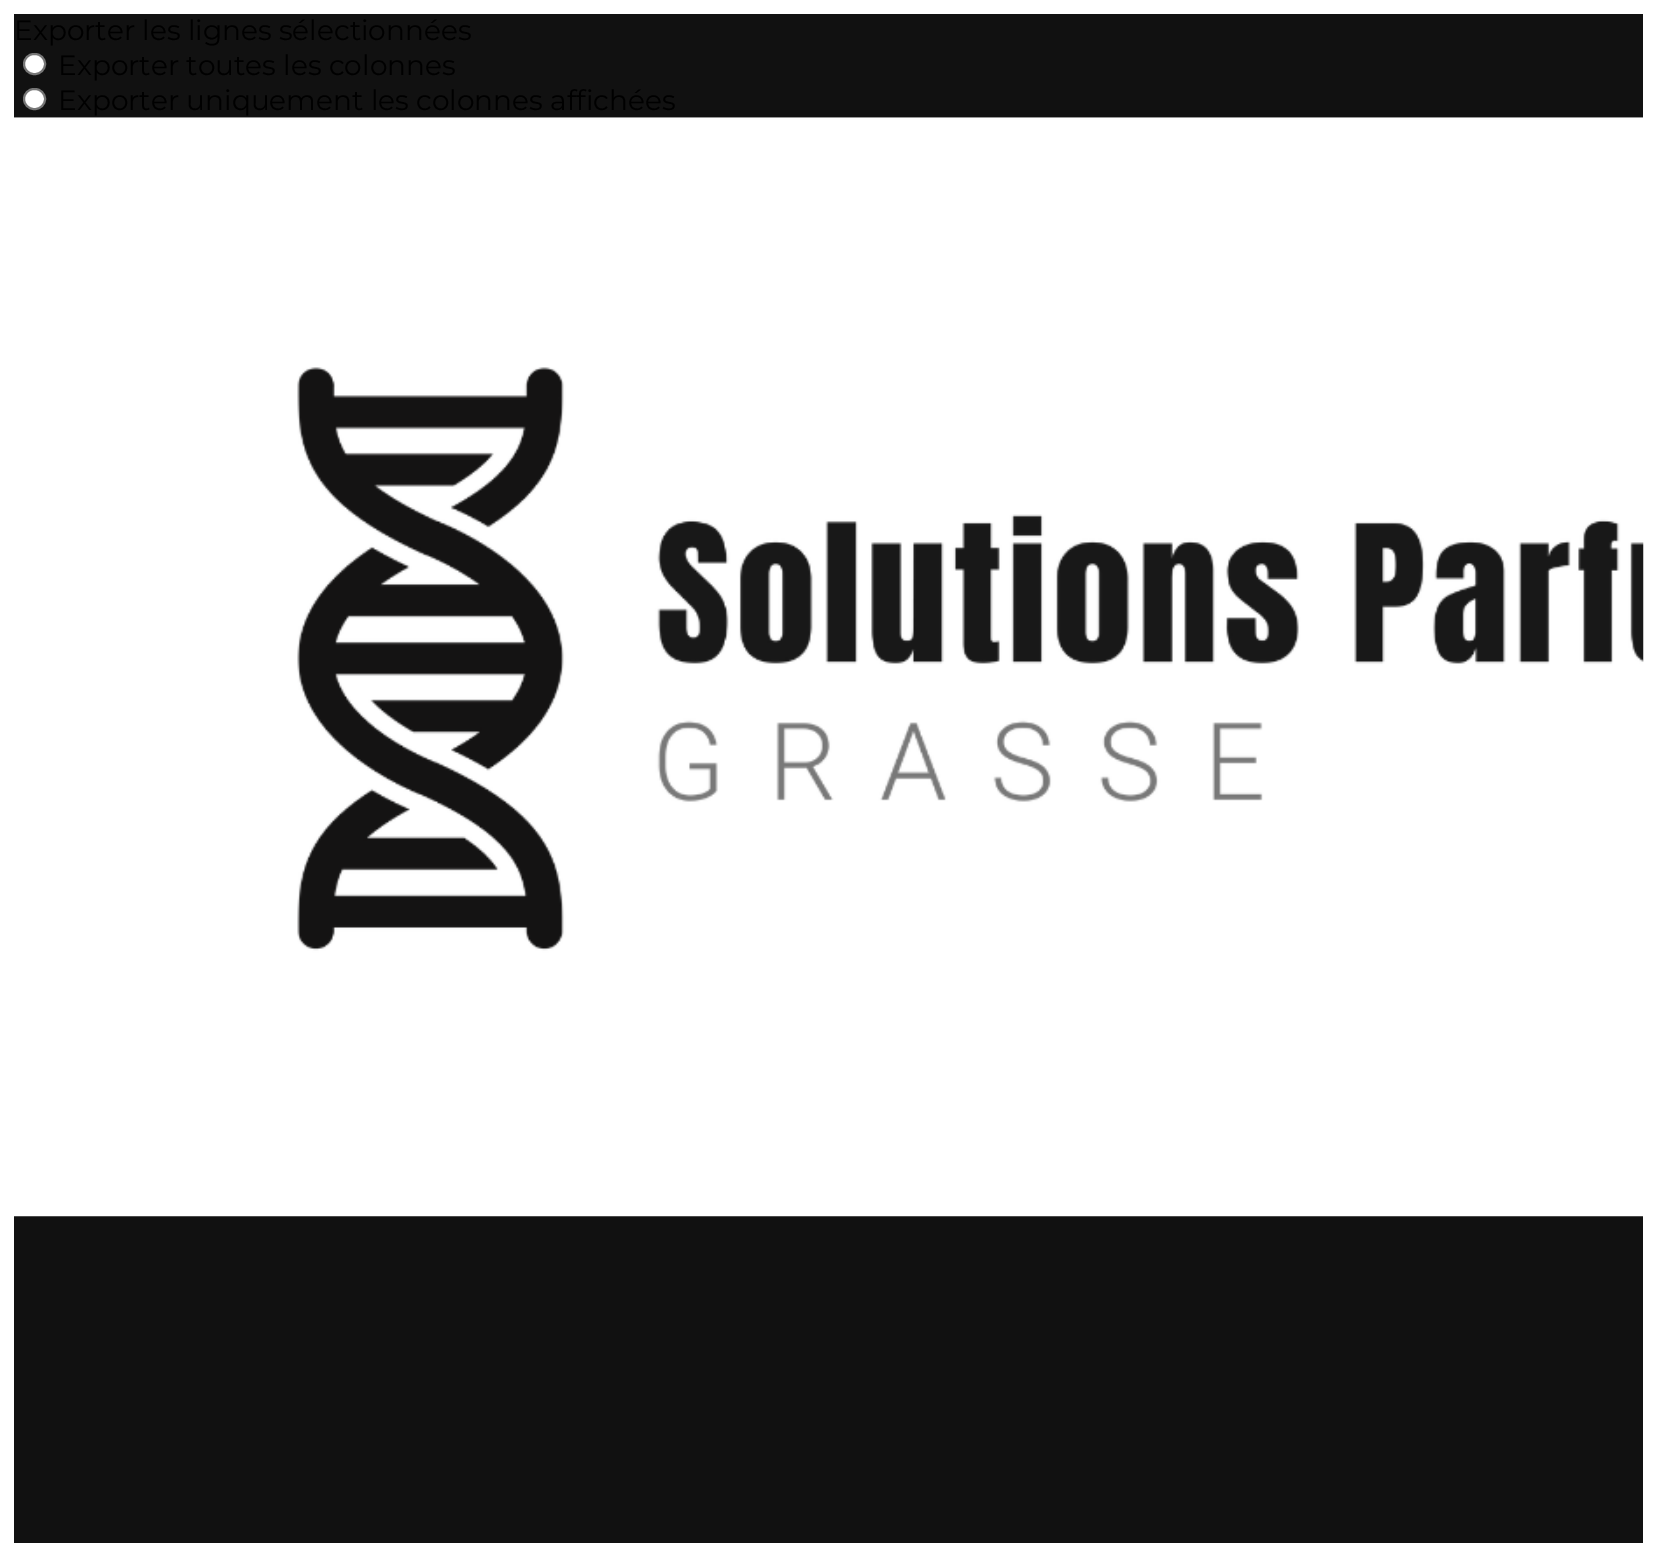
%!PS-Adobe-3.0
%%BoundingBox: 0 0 1656 1543
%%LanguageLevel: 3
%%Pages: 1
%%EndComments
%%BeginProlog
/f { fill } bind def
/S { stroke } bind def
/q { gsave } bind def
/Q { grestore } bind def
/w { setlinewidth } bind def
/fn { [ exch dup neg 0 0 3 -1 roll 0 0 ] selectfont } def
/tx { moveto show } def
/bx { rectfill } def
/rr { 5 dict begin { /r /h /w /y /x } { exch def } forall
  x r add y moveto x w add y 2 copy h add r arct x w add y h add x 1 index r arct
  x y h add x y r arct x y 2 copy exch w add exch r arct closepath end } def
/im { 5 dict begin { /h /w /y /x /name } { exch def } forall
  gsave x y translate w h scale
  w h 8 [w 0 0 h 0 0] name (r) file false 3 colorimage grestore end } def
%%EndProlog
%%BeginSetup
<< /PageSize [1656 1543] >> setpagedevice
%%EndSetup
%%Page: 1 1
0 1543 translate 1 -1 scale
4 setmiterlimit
1 setgray
0 0 1656 1543 bx
0.067 setgray
14 14 1629 1529 bx
/Montserrat-Regular 28 fn
0 setgray
(Exporter les lignes sélectionnées) 14 40 tx
1 setgray
24 54 21 20 10 rr q f Q
0.463 setgray
2 w
S
0 setgray
(Exporter toutes les colonnes) 58 75 tx
1 setgray
24 89 21 20 10 rr q f Q
0.463 setgray
S
0 setgray
(Exporter uniquement les colonnes affichées) 58 110 tx
(image0.raw) 14 117 1630 1100 im
showpage
%%EOF
